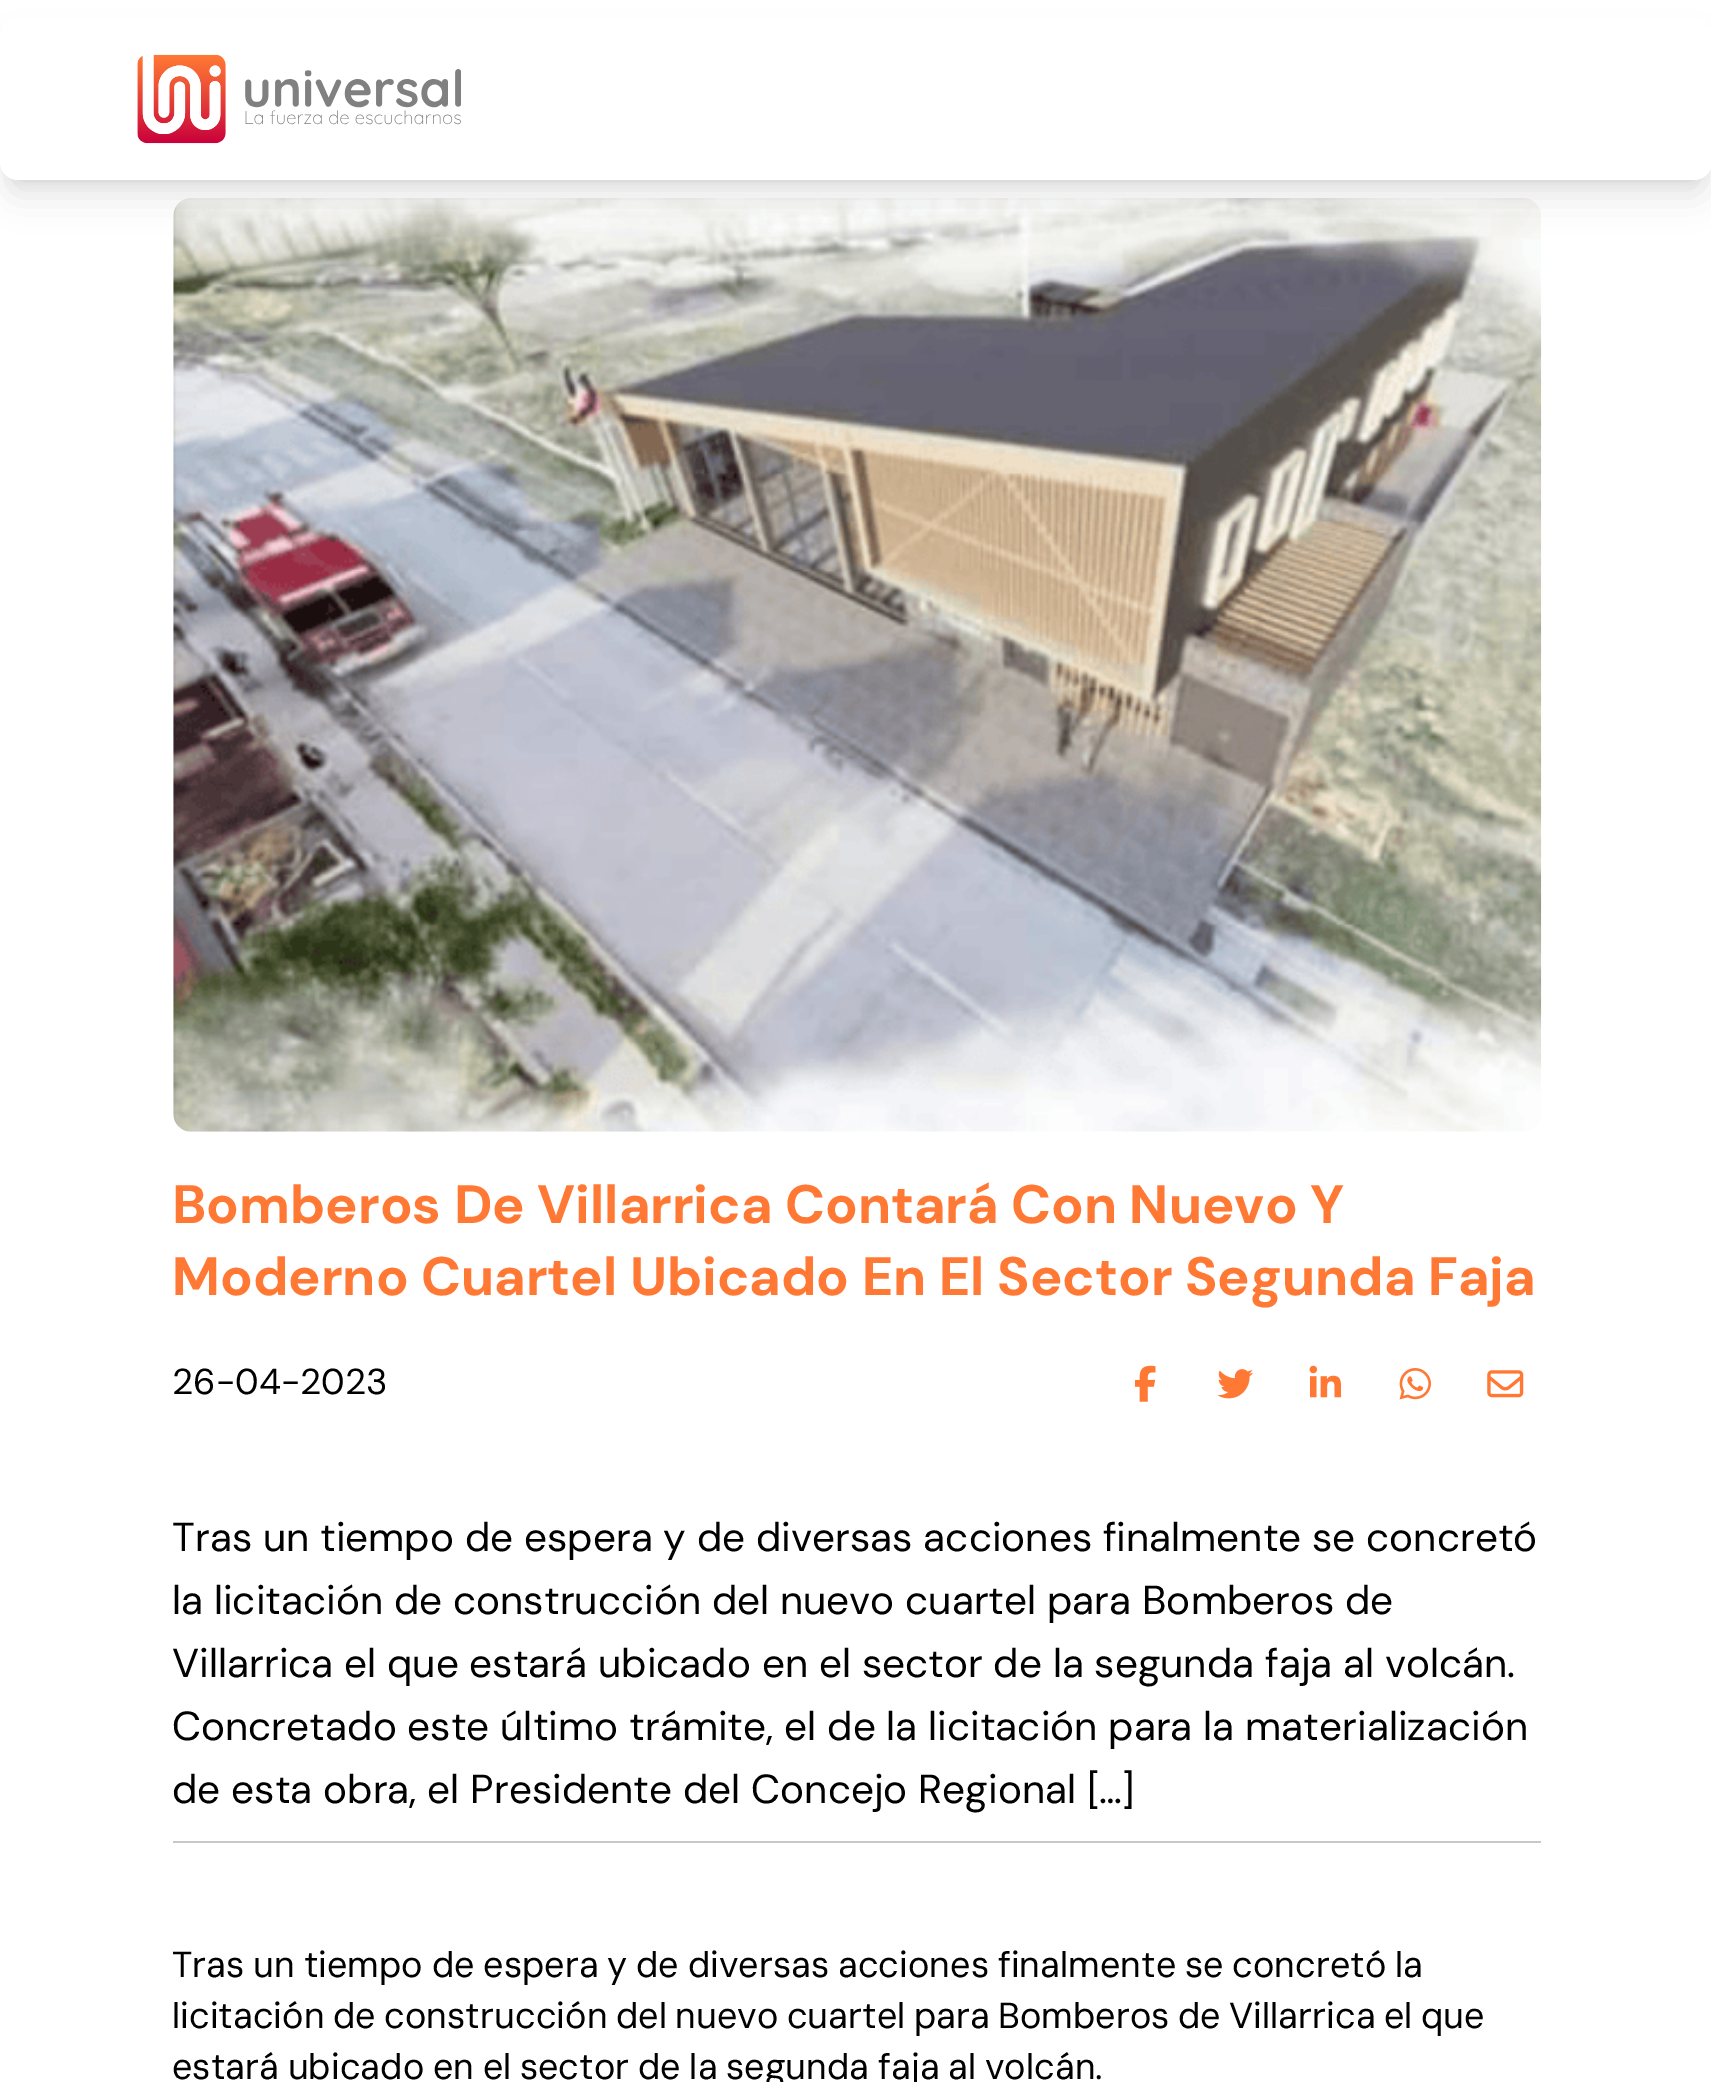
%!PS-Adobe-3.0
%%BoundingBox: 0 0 1711 2082
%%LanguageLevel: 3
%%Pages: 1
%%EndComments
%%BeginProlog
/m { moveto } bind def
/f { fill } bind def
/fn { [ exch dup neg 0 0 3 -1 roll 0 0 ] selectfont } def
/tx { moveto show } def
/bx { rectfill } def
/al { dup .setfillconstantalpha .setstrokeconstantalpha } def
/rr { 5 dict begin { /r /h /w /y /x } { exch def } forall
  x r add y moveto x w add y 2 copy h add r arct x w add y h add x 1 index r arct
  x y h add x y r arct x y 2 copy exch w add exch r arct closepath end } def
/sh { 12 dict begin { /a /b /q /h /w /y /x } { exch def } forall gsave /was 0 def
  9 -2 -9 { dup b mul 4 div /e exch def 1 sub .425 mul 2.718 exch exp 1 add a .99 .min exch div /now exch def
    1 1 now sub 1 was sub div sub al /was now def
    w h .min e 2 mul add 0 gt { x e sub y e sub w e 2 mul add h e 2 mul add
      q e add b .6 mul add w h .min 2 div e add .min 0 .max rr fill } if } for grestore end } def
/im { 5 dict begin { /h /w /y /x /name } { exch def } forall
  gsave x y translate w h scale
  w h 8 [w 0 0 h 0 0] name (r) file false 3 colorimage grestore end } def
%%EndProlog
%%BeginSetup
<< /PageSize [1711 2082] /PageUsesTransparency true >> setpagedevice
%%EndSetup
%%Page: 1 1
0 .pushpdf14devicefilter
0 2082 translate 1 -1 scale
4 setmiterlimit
1 setgray
0 0 1711 2082 bx
(image1.raw) 173 198 1369 934 im
0 setgray
9 36 1694 144 9 7 0.1 sh
7 47 1699 149 11 17 0.1 sh
1 setgray
0 18 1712 162 18 rr f
(image0.raw) 137 54 324 90 im
/DMSans-Bold 54 fn
1 0.471 0.204 setrgbcolor
(Bomberos De Villarrica Contará Con Nuevo Y) 172 1223 tx
(Moderno Cuartel Ubicado En El Sector Segunda Faja) 172 1295 tx
/DMSans-Regular 36 fn
0 setgray
(26-04-2023) 172 1394 tx
(image2.raw) 1135 1365 21 37 im
(image3.raw) 1217 1369 37 30 im
(image4.raw) 1309 1365 32 33 im
(image5.raw) 1399 1368 32 32 im
(image6.raw) 1487 1370 37 28 im
0.784 setgray
173 1841 1368 2 bx
/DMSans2-Regular 40.5 fn
0 setgray
(Tras un tiempo de espera y de diversas acciones finalmente se concretó) 172 1551 tx
(la licitación de construcción del nuevo cuartel para Bomberos de) 172 1614 tx
(Villarrica el que estará ubicado en el sector de la segunda faja al volcán.) 172 1677 tx
(Concretado este último trámite, el de la licitación para la materialización) 172 1740 tx
(de esta obra, el Presidente del Concejo Regional […]) 172 1803 tx
/DMSans-Regular 36 fn
172 1977 m -0.9 0 32 (Tras un tiempo de espera y de diversas acciones finalmente se concretó la) widthshow
172 2028 m -1.25 0 32 (licitación de construcción del nuevo cuartel para Bomberos de Villarrica el que) widthshow
172 2079 m -1 0 32 (estará ubicado en el sector de la segunda faja al volcán.) widthshow
.poppdf14devicefilter showpage
%%EOF
